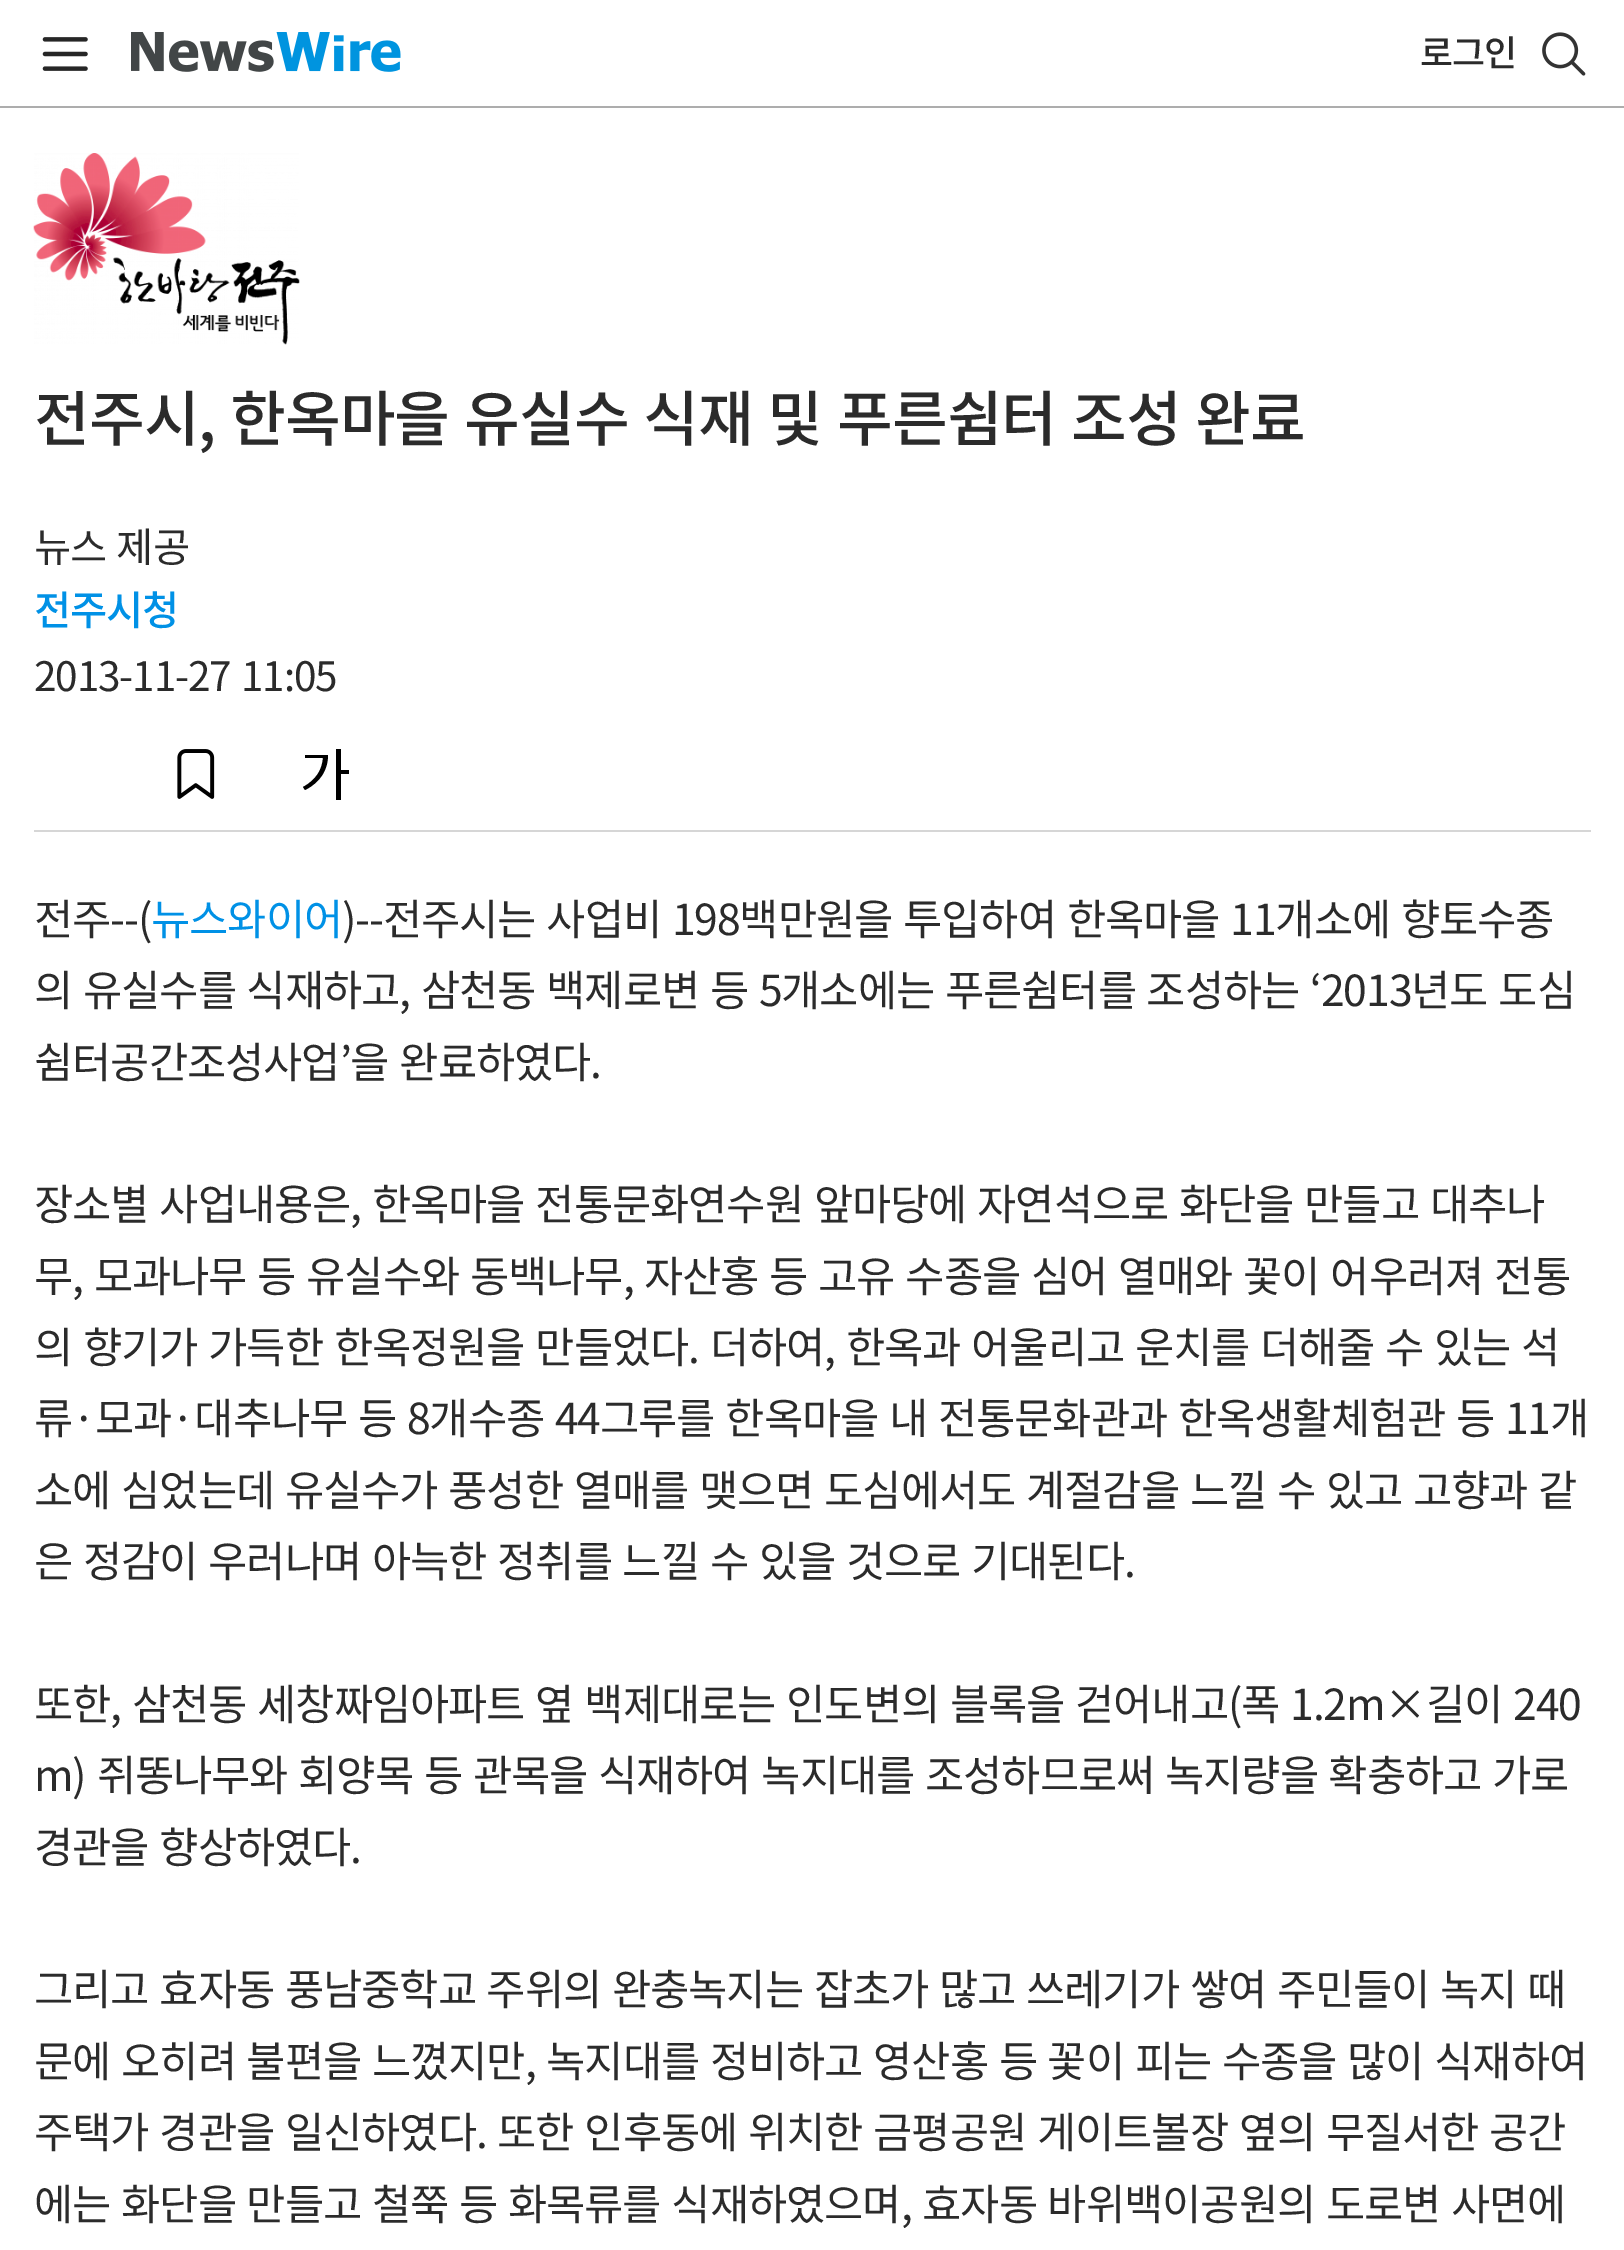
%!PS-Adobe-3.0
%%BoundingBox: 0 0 1624 2250
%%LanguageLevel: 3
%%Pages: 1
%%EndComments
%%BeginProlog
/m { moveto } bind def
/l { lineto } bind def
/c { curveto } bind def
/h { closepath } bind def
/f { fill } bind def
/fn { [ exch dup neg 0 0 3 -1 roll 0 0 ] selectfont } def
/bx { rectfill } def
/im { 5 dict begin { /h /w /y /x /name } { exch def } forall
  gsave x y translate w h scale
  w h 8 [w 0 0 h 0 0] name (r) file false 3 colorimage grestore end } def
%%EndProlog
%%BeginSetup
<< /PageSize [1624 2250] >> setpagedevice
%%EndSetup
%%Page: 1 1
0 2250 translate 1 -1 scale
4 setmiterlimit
1 setgray
0 0 1624 2250 bx
0.678 setgray
0 106 1624 2 bx
(image0.raw) 42 37 46 34 im
(image1.raw) 131 32 270 40 im
/NotoSansKR-Medium 36 fn
0.169 setgray
1420 66 m -1.12 0 (로그인) ashow
(image2.raw) 1542 32 44 44 im
0.839 setgray
34 830 1557 2 bx
(image3.raw) 33 153 267 192 im
/NotoSansKR-Medium 60.75 fn
0.169 setgray
34 441 m 2.25 0 32 -1.12 0 (전주시, 한옥마을 유실수 식재 및 푸른쉼터 조성 완료) awidthshow
/NotoSansKR-Regular 40.5 fn
34 562 m 2.25 0 32 -1.12 0 (뉴스 제공) awidthshow
/NotoSansKR-Medium 40.5 fn
0 0.569 0.902 setrgbcolor
34 625 m -1.12 0 (전주시청) ashow
/NotoSansKR-Regular 40.5 fn
0.169 setgray
34 691 m 2.25 0 32 -1.12 0 (2013-11-27 11:05) awidthshow
(image4.raw) 177 749 38 50 im
0 setgray
305 755 m 328 755 l 328 769 321 782 305 790 c 303 787 l 316 780 322 770 323 758 c 305 758 l h 349 770 m 349 774 l 341 774 l 341 800 l 336 800 l 336 749 l 341 749 l 341 770 l h f
/NotoSansKR-Regular 42.75 fn
0.169 setgray
34 935 m -1.12 0 (전주--\() ashow
0 0.569 0.902 setrgbcolor
151 935 m -1.12 0 (뉴스와이어) ashow
0.169 setgray
342 935 m 2.25 0 32 -1.12 0 (\)--전주시는 사업비 198백만원을 투입하여 한옥마을 11개소에 향토수종) awidthshow
34 1006 m 2.25 0 32 -1.12 0 (의 유실수를 식재하고, 삼천동 백제로변 등 5개소에는 푸른쉼터를 조성하는 ‘2013년도 도심) awidthshow
34 1078 m 2.25 0 32 -1.12 0 (쉼터공간조성사업’을 완료하였다.) awidthshow
34 1220 m 2.25 0 32 -1.12 0 (장소별 사업내용은, 한옥마을 전통문화연수원 앞마당에 자연석으로 화단을 만들고 대추나) awidthshow
34 1292 m 2.25 0 32 -1.12 0 (무, 모과나무 등 유실수와 동백나무, 자산홍 등 고유 수종을 심어 열매와 꽃이 어우러져 전통) awidthshow
34 1363 m 2.25 0 32 -1.12 0 (의 향기가 가득한 한옥정원을 만들었다. 더하여, 한옥과 어울리고 운치를 더해줄 수 있는 석) awidthshow
34 1434 m 2.25 0 32 -1.12 0 (류·모과·대추나무 등 8개수종 44그루를 한옥마을 내 전통문화관과 한옥생활체험관 등 11개) awidthshow
34 1506 m 2.25 0 32 -1.12 0 (소에 심었는데 유실수가 풍성한 열매를 맺으면 도심에서도 계절감을 느낄 수 있고 고향과 같) awidthshow
34 1577 m 2.25 0 32 -1.12 0 (은 정감이 우러나며 아늑한 정취를 느낄 수 있을 것으로 기대된다.) awidthshow
34 1720 m 2.25 0 32 -1.12 0 (또한, 삼천동 세창짜임아파트 옆 백제대로는 인도변의 블록을 걷어내고\(폭 1.2m×길이 240) awidthshow
34 1791 m 2.25 0 32 -1.12 0 (m\) 쥐똥나무와 회양목 등 관목을 식재하여 녹지대를 조성하므로써 녹지량을 확충하고 가로) awidthshow
34 1863 m 2.25 0 32 -1.12 0 (경관을 향상하였다.) awidthshow
34 2005 m 2.25 0 32 -1.12 0 (그리고 효자동 풍남중학교 주위의 완충녹지는 잡초가 많고 쓰레기가 쌓여 주민들이 녹지 때) awidthshow
34 2077 m 2.25 0 32 -1.12 0 (문에 오히려 불편을 느꼈지만, 녹지대를 정비하고 영산홍 등 꽃이 피는 수종을 많이 식재하여) awidthshow
34 2148 m 2.25 0 32 -1.12 0 (주택가 경관을 일신하였다. 또한 인후동에 위치한 금평공원 게이트볼장 옆의 무질서한 공간) awidthshow
34 2220 m 2.25 0 32 -1.12 0 (에는 화단을 만들고 철쭉 등 화목류를 식재하였으며, 효자동 바위백이공원의 도로변 사면에) awidthshow
showpage
%%EOF
